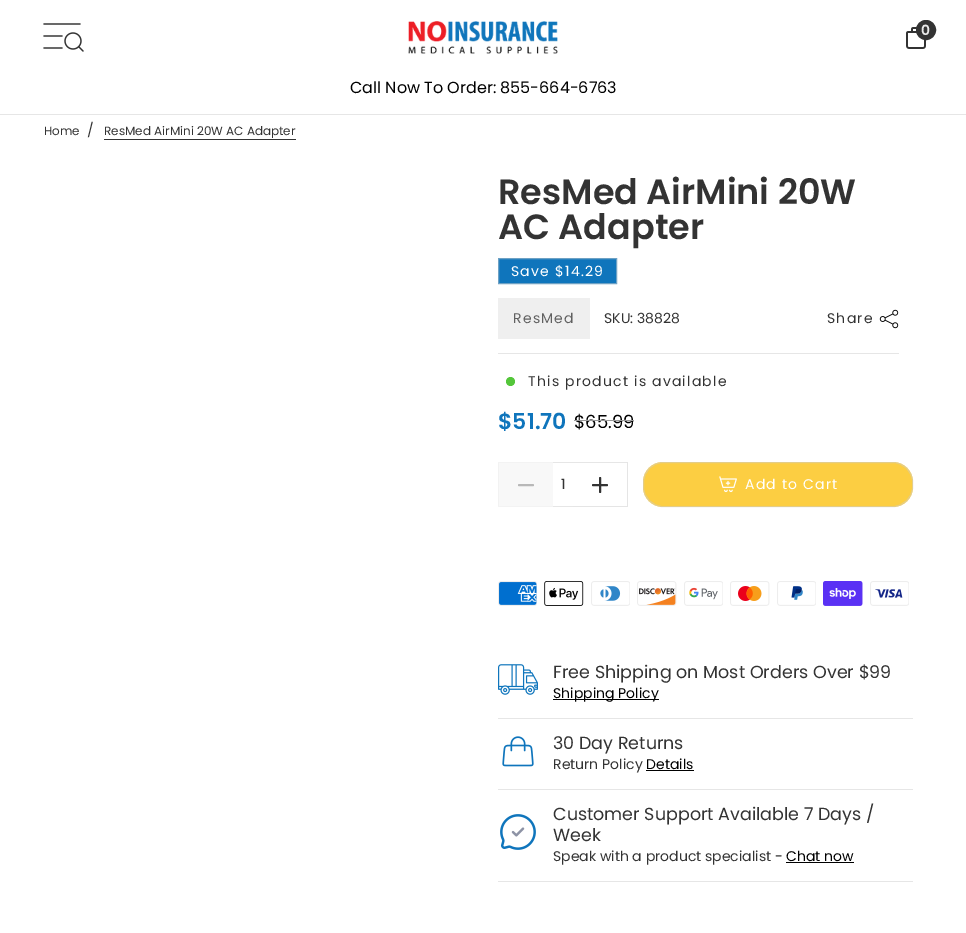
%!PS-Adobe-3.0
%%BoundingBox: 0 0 966 933
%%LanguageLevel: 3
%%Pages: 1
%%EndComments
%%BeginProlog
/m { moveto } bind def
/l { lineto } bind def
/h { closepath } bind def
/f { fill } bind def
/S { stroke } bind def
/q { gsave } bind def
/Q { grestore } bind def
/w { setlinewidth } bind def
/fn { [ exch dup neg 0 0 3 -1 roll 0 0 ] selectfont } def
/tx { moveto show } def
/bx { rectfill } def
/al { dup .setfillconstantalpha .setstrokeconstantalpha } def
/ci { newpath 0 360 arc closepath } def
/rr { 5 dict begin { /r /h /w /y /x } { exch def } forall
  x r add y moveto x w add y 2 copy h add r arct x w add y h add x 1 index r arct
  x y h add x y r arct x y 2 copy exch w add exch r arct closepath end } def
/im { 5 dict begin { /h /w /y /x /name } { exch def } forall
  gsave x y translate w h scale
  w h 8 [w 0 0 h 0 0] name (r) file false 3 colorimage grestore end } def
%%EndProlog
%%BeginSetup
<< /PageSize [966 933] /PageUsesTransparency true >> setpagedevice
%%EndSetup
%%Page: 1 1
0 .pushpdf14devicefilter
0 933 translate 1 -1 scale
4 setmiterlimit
1 setgray
0 0 966 933 bx
0.902 setgray
0 114 966 1 bx
(image0.raw) 43 23 41 29 im
(image1.raw) 408 21 150 33 im
(image2.raw) 906 27 20 22 im
0.2 setgray
926 30 9.5 ci q f Q
S
/Poppins-SemiBold 14 fn
0.914 setgray
(0) 921 35 tx
/Poppins-Regular 16 fn
0 setgray
(Call Now To Order: 855-664-6763) 350 93 tx
/Poppins-Regular 12 fn
0.2 setgray
(Home) 44 135 tx
/Poppins-Regular 14 fn
(/) 87 135 tx
/Poppins-Regular 12 fn
(ResMed AirMini 20W AC Adapter) 104 135 tx
104 139 192 1 bx
/Poppins-SemiBold 35 fn
(ResMed AirMini 20W) 498 204 tx
(AC Adapter) 498 239 tx
0.059 0.459 0.737 setrgbcolor
498.5 258.5 m 616.5 258.5 l 616.5 283.5 l 498.5 283.5 l h q f Q
0.431 0.631 0.769 setrgbcolor
S
/Poppins-Regular 14 fn
1 setgray
511 276 m 1.2 0 (Save $14.29) ashow
0.902 setgray
498 353 401 1 bx
0.937 setgray
498 298 92 41 bx
0.376 setgray
513 323 m 1.2 0 (ResMed) ashow
0.2 setgray
(SKU: 38828) 604 323 tx
827 323 m 1.2 0 (Share) ashow
(image3.raw) 879 309 20 20 im
0.329 0.776 0.227 setrgbcolor
510.5 381.5 4.5 ci f
0.2 setgray
528 386 m 1.2 0 (This product is available) ashow
/Poppins-SemiBold 22 fn
0.059 0.459 0.737 setrgbcolor
($51.70) 498 429 tx
/Poppins-Regular 18 fn
0 setgray
($65.99) 574 428 tx
0.6 setgray
574 420 60 1 bx
0.973 setgray
498 462 55 45 bx
0.953 setgray
498 462 m 553 462 l 553 463 l 499 463 l h 553 507 m 498 507 l 499 506 l 553 506 l h f
0.5 al
0.929 setgray
498 507 m 498 462 l 499 463 l 499 506 l h f
1 al
0.722 setgray
2 w
1 setlinecap
1 setlinejoin
519 485 m 533 485 l S
0.902 setgray
553 462 20 1 bx
553 506 20 1 bx
/Poppins-Regular 14 fn
0.2 setgray
(1) 561 489 tx
0.902 setgray
573 462 m 628 462 l 627 463 l 573 463 l h f
0.5 al
0.8 setgray
628 462 m 628 507 l 627 506 l 627 463 l h f
628 507 m 573 507 l 573 506 l 627 506 l h f
1 al
0.2 setgray
600 478 m 600 492 l 593 485 m 607 485 l S
0.988 0.808 0.259 setrgbcolor
643 462 270 45 20 rr f
0.5 al
0.8 setgray
1 w
0 setlinecap
0 setlinejoin
643.5 462.5 269 44 19.5 rr S
1 al
(image4.raw) 719 476 18 17 im
1 setgray
745 489 m 1.2 0 (Add to Cart) ashow
(image5.raw) 498 581 39 25 im
(image6.raw) 544 581 40 25 im
(image7.raw) 591 581 39 25 im
(image8.raw) 637 581 40 25 im
(image9.raw) 684 581 39 25 im
(image10.raw) 730 581 40 25 im
(image11.raw) 777 581 39 25 im
(image12.raw) 823 581 40 25 im
(image13.raw) 870 581 39 25 im
0.902 setgray
498 718 415 1 bx
(image14.raw) 498 664 40 31 im
/Poppins-Regular 17.5 fn
0.2 setgray
(Free Shipping on Most Orders Over $99) 553 678 tx
0 setgray
553 699 106 1 bx
/Poppins-Regular 14 fn
(Shipping Policy) 553 698 tx
0.902 setgray
498 789 415 1 bx
(image15.raw) 502 736 32 31 im
/Poppins-Regular 17.5 fn
0.2 setgray
(30 Day Returns) 553 749 tx
/Poppins-Regular 14 fn
(Return Policy) 553 769 tx
0 setgray
(Details) 646 769 tx
646 770 48 1 bx
0.902 setgray
498 881 415 1 bx
(image16.raw) 500 814 36 36 im
/Poppins-Regular 17.5 fn
0.2 setgray
(Customer Support Available 7 Days /) 553 820 tx
(Week) 553 841 tx
/Poppins-Regular 14 fn
(Speak with a product specialist -) 553 861 tx
0 setgray
(Chat now) 786 861 tx
786 862 68 1 bx
.poppdf14devicefilter showpage
%%EOF
